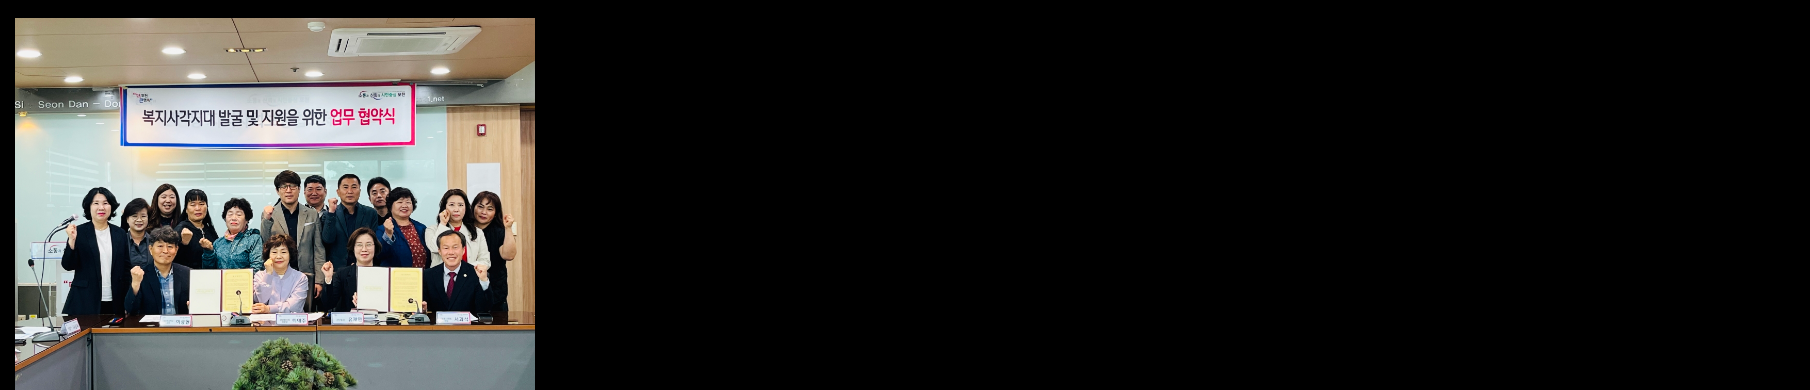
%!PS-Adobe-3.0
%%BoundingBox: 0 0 1810 390
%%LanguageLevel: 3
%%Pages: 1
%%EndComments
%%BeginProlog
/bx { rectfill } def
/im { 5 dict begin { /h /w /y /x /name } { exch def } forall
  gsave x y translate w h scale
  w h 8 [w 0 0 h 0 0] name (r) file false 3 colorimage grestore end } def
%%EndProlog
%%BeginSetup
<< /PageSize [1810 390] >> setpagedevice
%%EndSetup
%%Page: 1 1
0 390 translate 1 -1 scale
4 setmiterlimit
0 setgray
0 0 1810 390 bx
(image0.raw) 15 18 520 372 im
showpage
%%EOF
